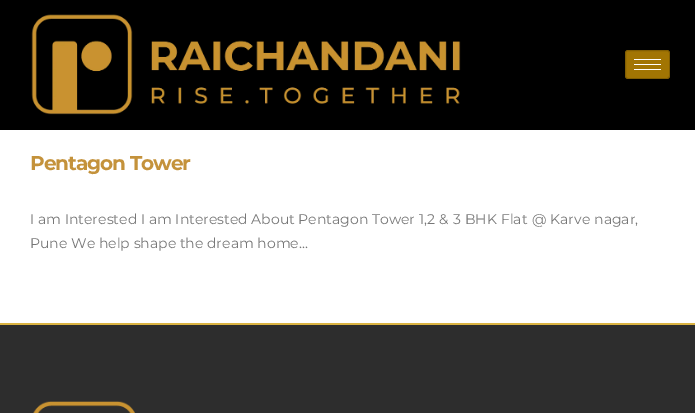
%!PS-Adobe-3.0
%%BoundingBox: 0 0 695 413
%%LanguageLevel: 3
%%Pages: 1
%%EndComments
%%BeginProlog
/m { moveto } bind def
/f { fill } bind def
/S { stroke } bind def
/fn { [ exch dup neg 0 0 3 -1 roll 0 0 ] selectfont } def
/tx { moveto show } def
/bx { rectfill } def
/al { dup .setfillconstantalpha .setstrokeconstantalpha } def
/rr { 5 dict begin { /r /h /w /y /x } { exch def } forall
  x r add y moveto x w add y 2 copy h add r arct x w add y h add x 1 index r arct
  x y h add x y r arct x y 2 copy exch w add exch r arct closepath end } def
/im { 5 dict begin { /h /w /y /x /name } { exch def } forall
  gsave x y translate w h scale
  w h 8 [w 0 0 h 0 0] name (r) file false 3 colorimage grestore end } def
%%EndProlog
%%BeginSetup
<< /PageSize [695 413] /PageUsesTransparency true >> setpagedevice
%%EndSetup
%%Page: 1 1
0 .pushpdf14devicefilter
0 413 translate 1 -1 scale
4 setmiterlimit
1 setgray
0 0 695 413 bx
0 setgray
0 0 695 130 bx
(image0.raw) 31 14 430 101 im
0.635 0.459 0.012 setrgbcolor
625 50 45 29 3 rr f
0.2 al
0 setgray
625.5 50.5 44 28 2.5 rr S
1 al
1 setgray
634 59 27 1 bx
634 64 27 1 bx
634 69 27 1 bx
/Montserrat-Bold 20 fn
0.769 0.573 0.231 setrgbcolor
30 170 m -1 0 (Pentagon Tower) ashow
/Montserrat-Regular 14 fn
0.467 setgray
(I am Interested I am Interested About Pentagon Tower) 30 224 tx
419 224 m 0.5 0 32 (1,2 & 3 BHK Flat @ Karve nagar,) widthshow
(Pune We help shape the dream home...) 30 248 tx
0.176 setgray
0 325 695 88 bx
0.855 0.702 0.259 setrgbcolor
0 323 695 2 bx
(image1.raw) 33 401 102 12 im
.poppdf14devicefilter showpage
%%EOF
